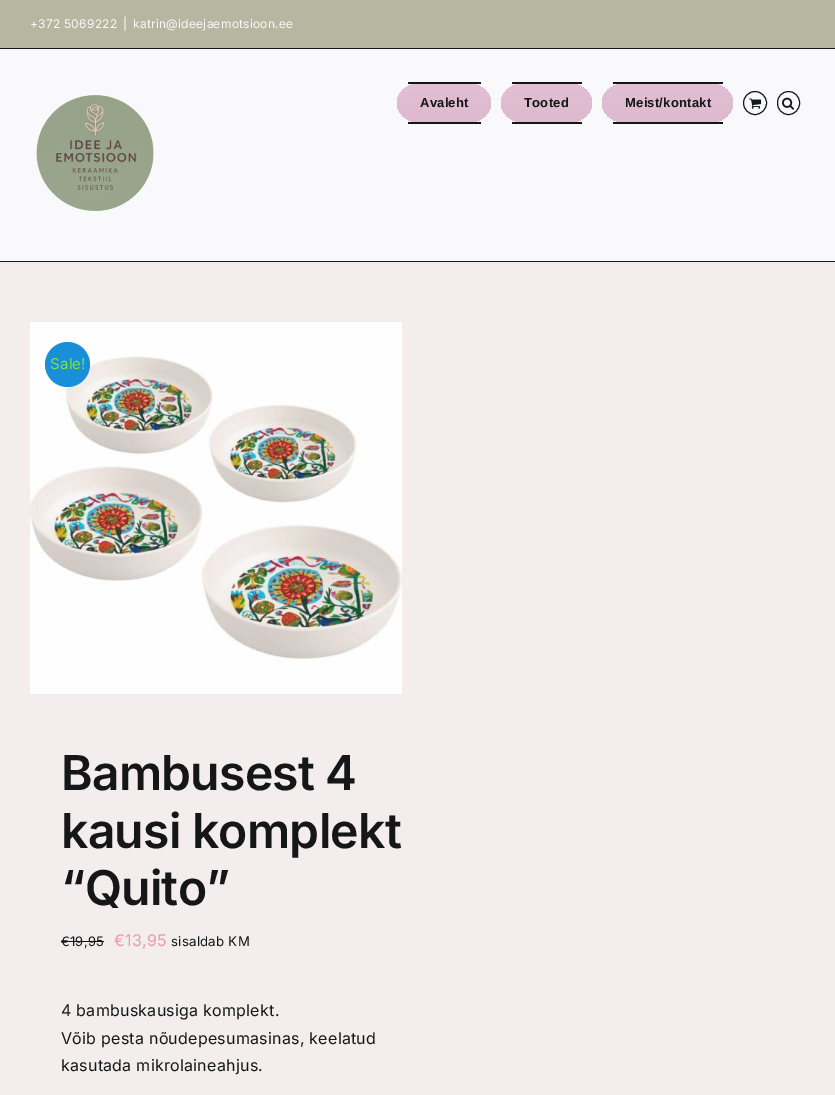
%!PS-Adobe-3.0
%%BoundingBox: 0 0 835 1095
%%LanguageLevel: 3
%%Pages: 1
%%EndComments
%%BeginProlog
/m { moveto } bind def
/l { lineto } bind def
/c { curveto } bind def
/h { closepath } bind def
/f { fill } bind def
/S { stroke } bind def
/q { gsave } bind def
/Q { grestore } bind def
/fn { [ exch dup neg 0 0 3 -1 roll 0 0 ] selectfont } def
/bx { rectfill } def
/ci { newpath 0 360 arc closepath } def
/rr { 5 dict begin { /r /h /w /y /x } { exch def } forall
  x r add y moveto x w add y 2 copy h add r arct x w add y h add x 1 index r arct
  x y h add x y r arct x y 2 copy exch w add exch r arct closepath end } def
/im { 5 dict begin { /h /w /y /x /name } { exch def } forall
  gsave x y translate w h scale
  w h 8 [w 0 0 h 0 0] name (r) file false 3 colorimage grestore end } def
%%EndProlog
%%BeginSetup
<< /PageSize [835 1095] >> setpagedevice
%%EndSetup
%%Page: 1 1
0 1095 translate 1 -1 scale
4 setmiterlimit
0.957 0.929 0.929 setrgbcolor
0 0 835 1095 bx
0.718 0.718 0.631 setrgbcolor
0 0 835 48 bx
0.078 0.086 0.09 setrgbcolor
0 48 835 1 bx
/Inter-Regular 12 fn
0.976 0.976 0.984 setrgbcolor
30 28 m 0.25 0 (+372 5069222) ashow
123 28 m 0.25 0 (|) ashow
133 28 m 0.25 0 (katrin@ideejaemotsioon.ee) ashow
0 49 835 212 bx
0.078 0.086 0.09 setrgbcolor
0 261 835 1 bx
(image0.raw) 36 94 118 117 im
q 418 84 m 470 84 l 482 84 491 93 491 103 c 491 113 482 122 470 122 c 418 122 l 406 122 397 113 397 103 c 397 93 406 84 418 84 c h clip newpath
<< /ShadingType 2 /ColorSpace /DeviceRGB /Coords [444 84 444 122] /Extend [true true] /Function << /FunctionType 3 /Domain [0 1] /Functions [<< /FunctionType 2 /Domain [0 1] /C0 [0.886 0.745 0.835] /C1 [0.886 0.745 0.835] /N 1 >> << /FunctionType 2 /Domain [0 1] /C0 [0.886 0.745 0.835] /C1 [0.867 0.729 0.804] /N 1 >>] /Bounds [0.09] /Encode [0 1 0 1] >> >> shfill Q
408 82 73 2 bx
408 122 73 2 bx
/LiberationSans-Bold 13 fn
420 107 m 0.25 0 (Avaleht) ashow
q 522 84 m 571 84 l 583 84 592 93 592 103 c 592 113 583 122 571 122 c 522 122 l 510 122 501 113 501 103 c 501 93 510 84 522 84 c h clip newpath
<< /ShadingType 2 /ColorSpace /DeviceRGB /Coords [547 84 547 122] /Extend [true true] /Function << /FunctionType 3 /Domain [0 1] /Functions [<< /FunctionType 2 /Domain [0 1] /C0 [0.886 0.745 0.835] /C1 [0.886 0.745 0.835] /N 1 >> << /FunctionType 2 /Domain [0 1] /C0 [0.886 0.745 0.835] /C1 [0.867 0.729 0.804] /N 1 >>] /Bounds [0.09] /Encode [0 1 0 1] >> >> shfill Q
512 82 70 2 bx
512 122 70 2 bx
524 107 m 0.25 0 (Tooted) ashow
q 623 84 m 712 84 l 724 84 733 93 733 103 c 733 113 724 122 712 122 c 623 122 l 611 122 602 113 602 103 c 602 93 611 84 623 84 c h clip newpath
<< /ShadingType 2 /ColorSpace /DeviceRGB /Coords [668 84 668 122] /Extend [true true] /Function << /FunctionType 3 /Domain [0 1] /Functions [<< /FunctionType 2 /Domain [0 1] /C0 [0.886 0.745 0.835] /C1 [0.886 0.745 0.835] /N 1 >> << /FunctionType 2 /Domain [0 1] /C0 [0.886 0.745 0.835] /C1 [0.867 0.729 0.804] /N 1 >>] /Bounds [0.09] /Encode [0 1 0 1] >> >> shfill Q
613 82 110 2 bx
613 122 110 2 bx
625 107 m 0.25 0 (Meist/kontakt) ashow
755 103 11.5 ci S
(image1.raw) 749 98 13 11 im
777.5 91.5 22 23 11 rr S
(image2.raw) 782 97 12 13 im
(image3.raw) 30 322 372 372 im
0.098 0.561 0.851 setrgbcolor
67.5 364.5 22.5 ci f
/Inter-Regular 15 fn
0.502 0.878 0.271 setrgbcolor
50 369 m 0.25 0 (Sale!) ashow
/Inter-SemiBold 48 fn
0.078 0.086 0.09 setrgbcolor
61 790 m -0.75 0 (Bambusest 4) ashow
61 848 m -0.75 0 (kausi komplekt) ashow
61 905 m -0.75 0 (“Quito”) ashow
/Inter-Regular 13 fn
61 946 m 0.25 0 (€19,95) ashow
61 941 43 1 bx
/Inter-Regular 16 fn
0.91 0.6 0.702 setrgbcolor
114 946 m 0.25 0 (€13,95) ashow
/Inter-Regular 13.25 fn
0.078 0.086 0.09 setrgbcolor
171 946 m 0.25 0 (sisaldab KM) ashow
/Inter-Regular 16 fn
61 1016 m 0.25 0 (4 bambuskausiga komplekt.) ashow
61 1044 m 0.25 0 (Võib pesta nõudepesumasinas, keelatud) ashow
61 1071 m 0.25 0 (kasutada mikrolaineahjus.) ashow
showpage
%%EOF
